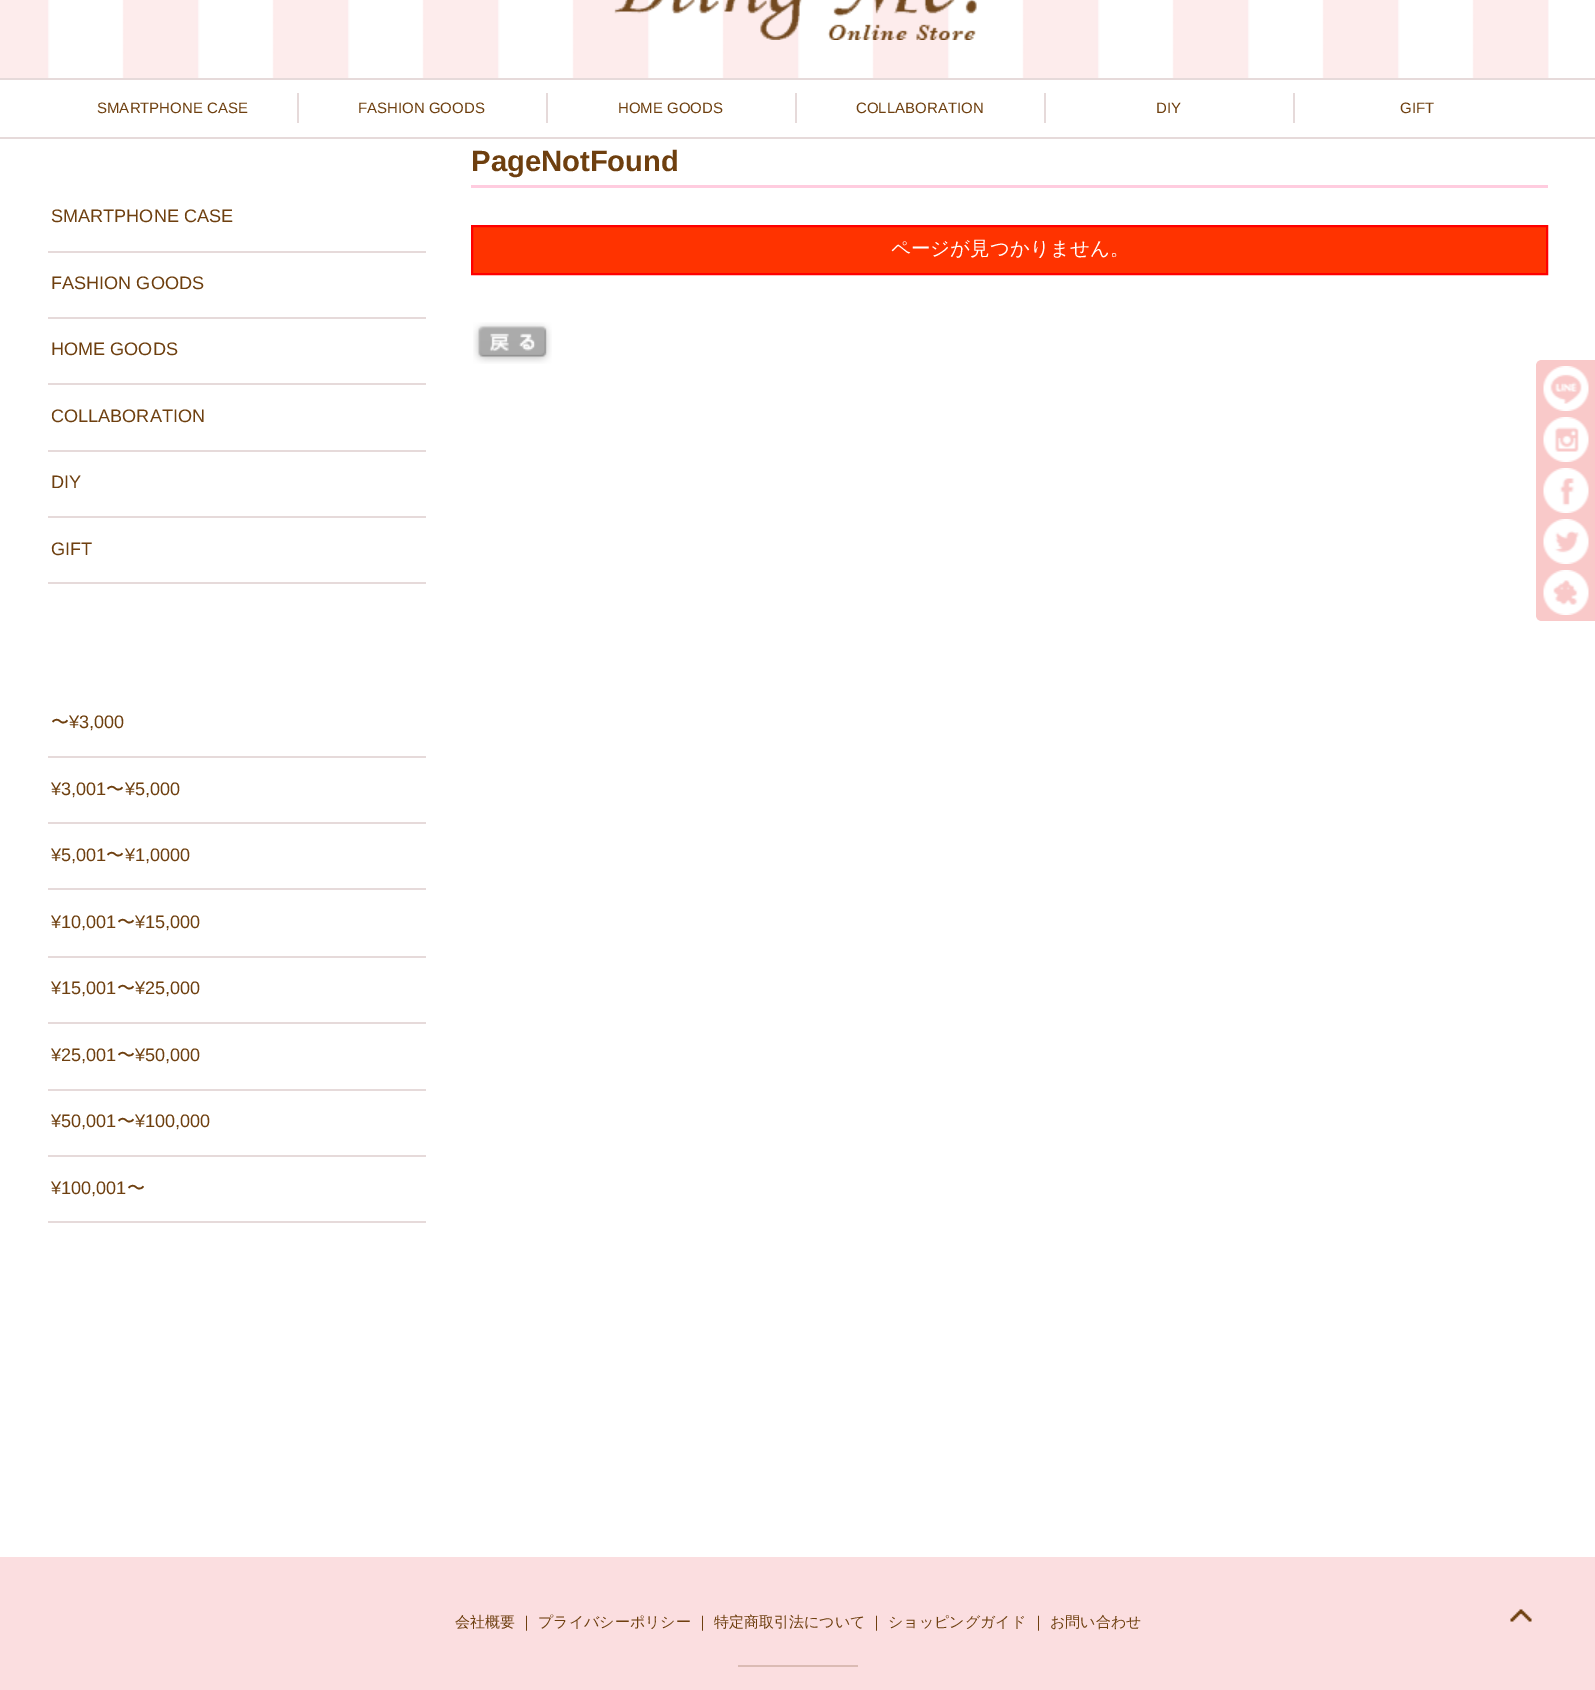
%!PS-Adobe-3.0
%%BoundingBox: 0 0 1595 1690
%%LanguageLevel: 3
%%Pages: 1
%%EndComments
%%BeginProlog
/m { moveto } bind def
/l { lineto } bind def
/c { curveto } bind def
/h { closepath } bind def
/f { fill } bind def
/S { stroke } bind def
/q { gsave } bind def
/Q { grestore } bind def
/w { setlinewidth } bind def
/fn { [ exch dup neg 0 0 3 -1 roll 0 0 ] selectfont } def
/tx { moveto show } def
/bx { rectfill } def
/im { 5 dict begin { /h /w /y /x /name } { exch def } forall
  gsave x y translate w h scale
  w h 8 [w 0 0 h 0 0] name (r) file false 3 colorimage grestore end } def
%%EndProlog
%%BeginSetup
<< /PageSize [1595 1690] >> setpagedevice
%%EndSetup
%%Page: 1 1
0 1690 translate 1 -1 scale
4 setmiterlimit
1 setgray
0 0 1595 1690 bx
(image0.raw) 0 0 1549 78 im
0.902 0.855 0.855 setrgbcolor
0 78 1595 2 bx
(image1.raw) 614 0 363 40 im
0 137 1595 2 bx
/LiberationSans-Regular 15 fn
0.431 0.247 0.059 setrgbcolor
(SMARTPHONE CASE) 97 113 tx
0.902 0.855 0.855 setrgbcolor
297 93 2 30 bx
0.431 0.247 0.059 setrgbcolor
(FASHION GOODS) 358 113 tx
0.902 0.855 0.855 setrgbcolor
546 93 2 30 bx
0.431 0.247 0.059 setrgbcolor
(HOME GOODS) 618 113 tx
0.902 0.855 0.855 setrgbcolor
795 93 2 30 bx
0.431 0.247 0.059 setrgbcolor
(COLLABORATION) 856 113 tx
0.902 0.855 0.855 setrgbcolor
1044 93 2 30 bx
0.431 0.247 0.059 setrgbcolor
(DIY) 1156 113 tx
0.902 0.855 0.855 setrgbcolor
1293 93 2 30 bx
0.431 0.247 0.059 setrgbcolor
(GIFT) 1400 113 tx
0.902 0.855 0.855 setrgbcolor
48 251 378 2 bx
/LiberationSans-Regular 18.1 fn
0.431 0.247 0.059 setrgbcolor
(SMARTPHONE CASE) 51 222 tx
0.902 0.855 0.855 setrgbcolor
48 317 378 2 bx
0.431 0.247 0.059 setrgbcolor
(FASHION GOODS) 51 289 tx
0.902 0.855 0.855 setrgbcolor
48 383 378 2 bx
0.431 0.247 0.059 setrgbcolor
(HOME GOODS) 51 355 tx
0.902 0.855 0.855 setrgbcolor
48 450 378 2 bx
0.431 0.247 0.059 setrgbcolor
(COLLABORATION) 51 422 tx
0.902 0.855 0.855 setrgbcolor
48 516 378 2 bx
0.431 0.247 0.059 setrgbcolor
(DIY) 51 488 tx
0.902 0.855 0.855 setrgbcolor
48 582 378 2 bx
0.431 0.247 0.059 setrgbcolor
(GIFT) 51 555 tx
0.902 0.855 0.855 setrgbcolor
48 756 378 2 bx
/WenQuanYiZenHei-Medium 18.1 fn
0.431 0.247 0.059 setrgbcolor
(〜) 51 728 tx
/LiberationSans-Regular 18.1 fn
(¥3,000) 69 728 tx
0.902 0.855 0.855 setrgbcolor
48 822 378 2 bx
0.431 0.247 0.059 setrgbcolor
(¥3,001) 51 795 tx
/WenQuanYiZenHei-Medium 18.1 fn
(〜) 106 795 tx
/LiberationSans-Regular 18.1 fn
(¥5,000) 125 795 tx
0.902 0.855 0.855 setrgbcolor
48 888 378 2 bx
0.431 0.247 0.059 setrgbcolor
(¥5,001) 51 861 tx
/WenQuanYiZenHei-Medium 18.1 fn
(〜) 106 861 tx
/LiberationSans-Regular 18.1 fn
(¥1,0000) 125 861 tx
0.902 0.855 0.855 setrgbcolor
48 956 378 2 bx
0.431 0.247 0.059 setrgbcolor
(¥10,001) 51 928 tx
/WenQuanYiZenHei-Medium 18.1 fn
(〜) 117 928 tx
/LiberationSans-Regular 18.1 fn
(¥15,000) 135 928 tx
0.902 0.855 0.855 setrgbcolor
48 1022 378 2 bx
0.431 0.247 0.059 setrgbcolor
(¥15,001) 51 994 tx
/WenQuanYiZenHei-Medium 18.1 fn
(〜) 117 994 tx
/LiberationSans-Regular 18.1 fn
(¥25,000) 135 994 tx
0.902 0.855 0.855 setrgbcolor
48 1089 378 2 bx
0.431 0.247 0.059 setrgbcolor
(¥25,001) 51 1061 tx
/WenQuanYiZenHei-Medium 18.1 fn
(〜) 117 1061 tx
/LiberationSans-Regular 18.1 fn
(¥50,000) 135 1061 tx
0.902 0.855 0.855 setrgbcolor
48 1155 378 2 bx
0.431 0.247 0.059 setrgbcolor
(¥50,001) 51 1127 tx
/WenQuanYiZenHei-Medium 18.1 fn
(〜) 117 1127 tx
/LiberationSans-Regular 18.1 fn
(¥100,000) 135 1127 tx
0.902 0.855 0.855 setrgbcolor
48 1221 378 2 bx
0.431 0.247 0.059 setrgbcolor
(¥100,001) 51 1194 tx
/WenQuanYiZenHei-Medium 18.1 fn
(〜) 127 1194 tx
1 0.8 0.875 setrgbcolor
471 185 1077 3 bx
/LiberationSans-Bold 29.25 fn
0.431 0.247 0.059 setrgbcolor
(PageNotFound) 471 171 tx
1 0.2 0 setrgbcolor
472 226 m 1547 226 l 1547 274 l 472 274 l h q f Q
1 0 0 setrgbcolor
2 w
S
/WenQuanYiZenHei-Medium 19.5 fn
1 setgray
(ページが見つかりません。) 891 255 tx
(image2.raw) 473 322 79 42 im
0.976 0.788 0.788 setrgbcolor
1542 360 m 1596 360 l 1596 621 l 1542 621 l 1538.5 621 1536 618.5 1536 615 c 1536 366 l 1536 362.5 1538.5 360 1542 360 c h f
(image3.raw) 1543 366 46 45 im
(image4.raw) 1543 417 46 45 im
(image5.raw) 1543 468 46 45 im
(image6.raw) 1543 519 46 45 im
(image7.raw) 1543 570 46 45 im
0.984 0.871 0.878 setrgbcolor
0 1557 1595 133 bx
/WenQuanYiZenHei-Medium 15 fn
0.431 0.247 0.059 setrgbcolor
(会社概要) 455 1627 tx
(｜) 519 1627 tx
(プライバシーポリシー) 538 1627 tx
(｜) 695 1627 tx
(特定商取引法について) 714 1627 tx
(｜) 869 1627 tx
(ショッピングガイド) 888 1627 tx
(｜) 1031 1627 tx
(お問い合わせ) 1050 1627 tx
0.859 0.733 0.706 setrgbcolor
738 1665 120 2 bx
(image8.raw) 1510 1609 22 13 im
showpage
%%EOF
